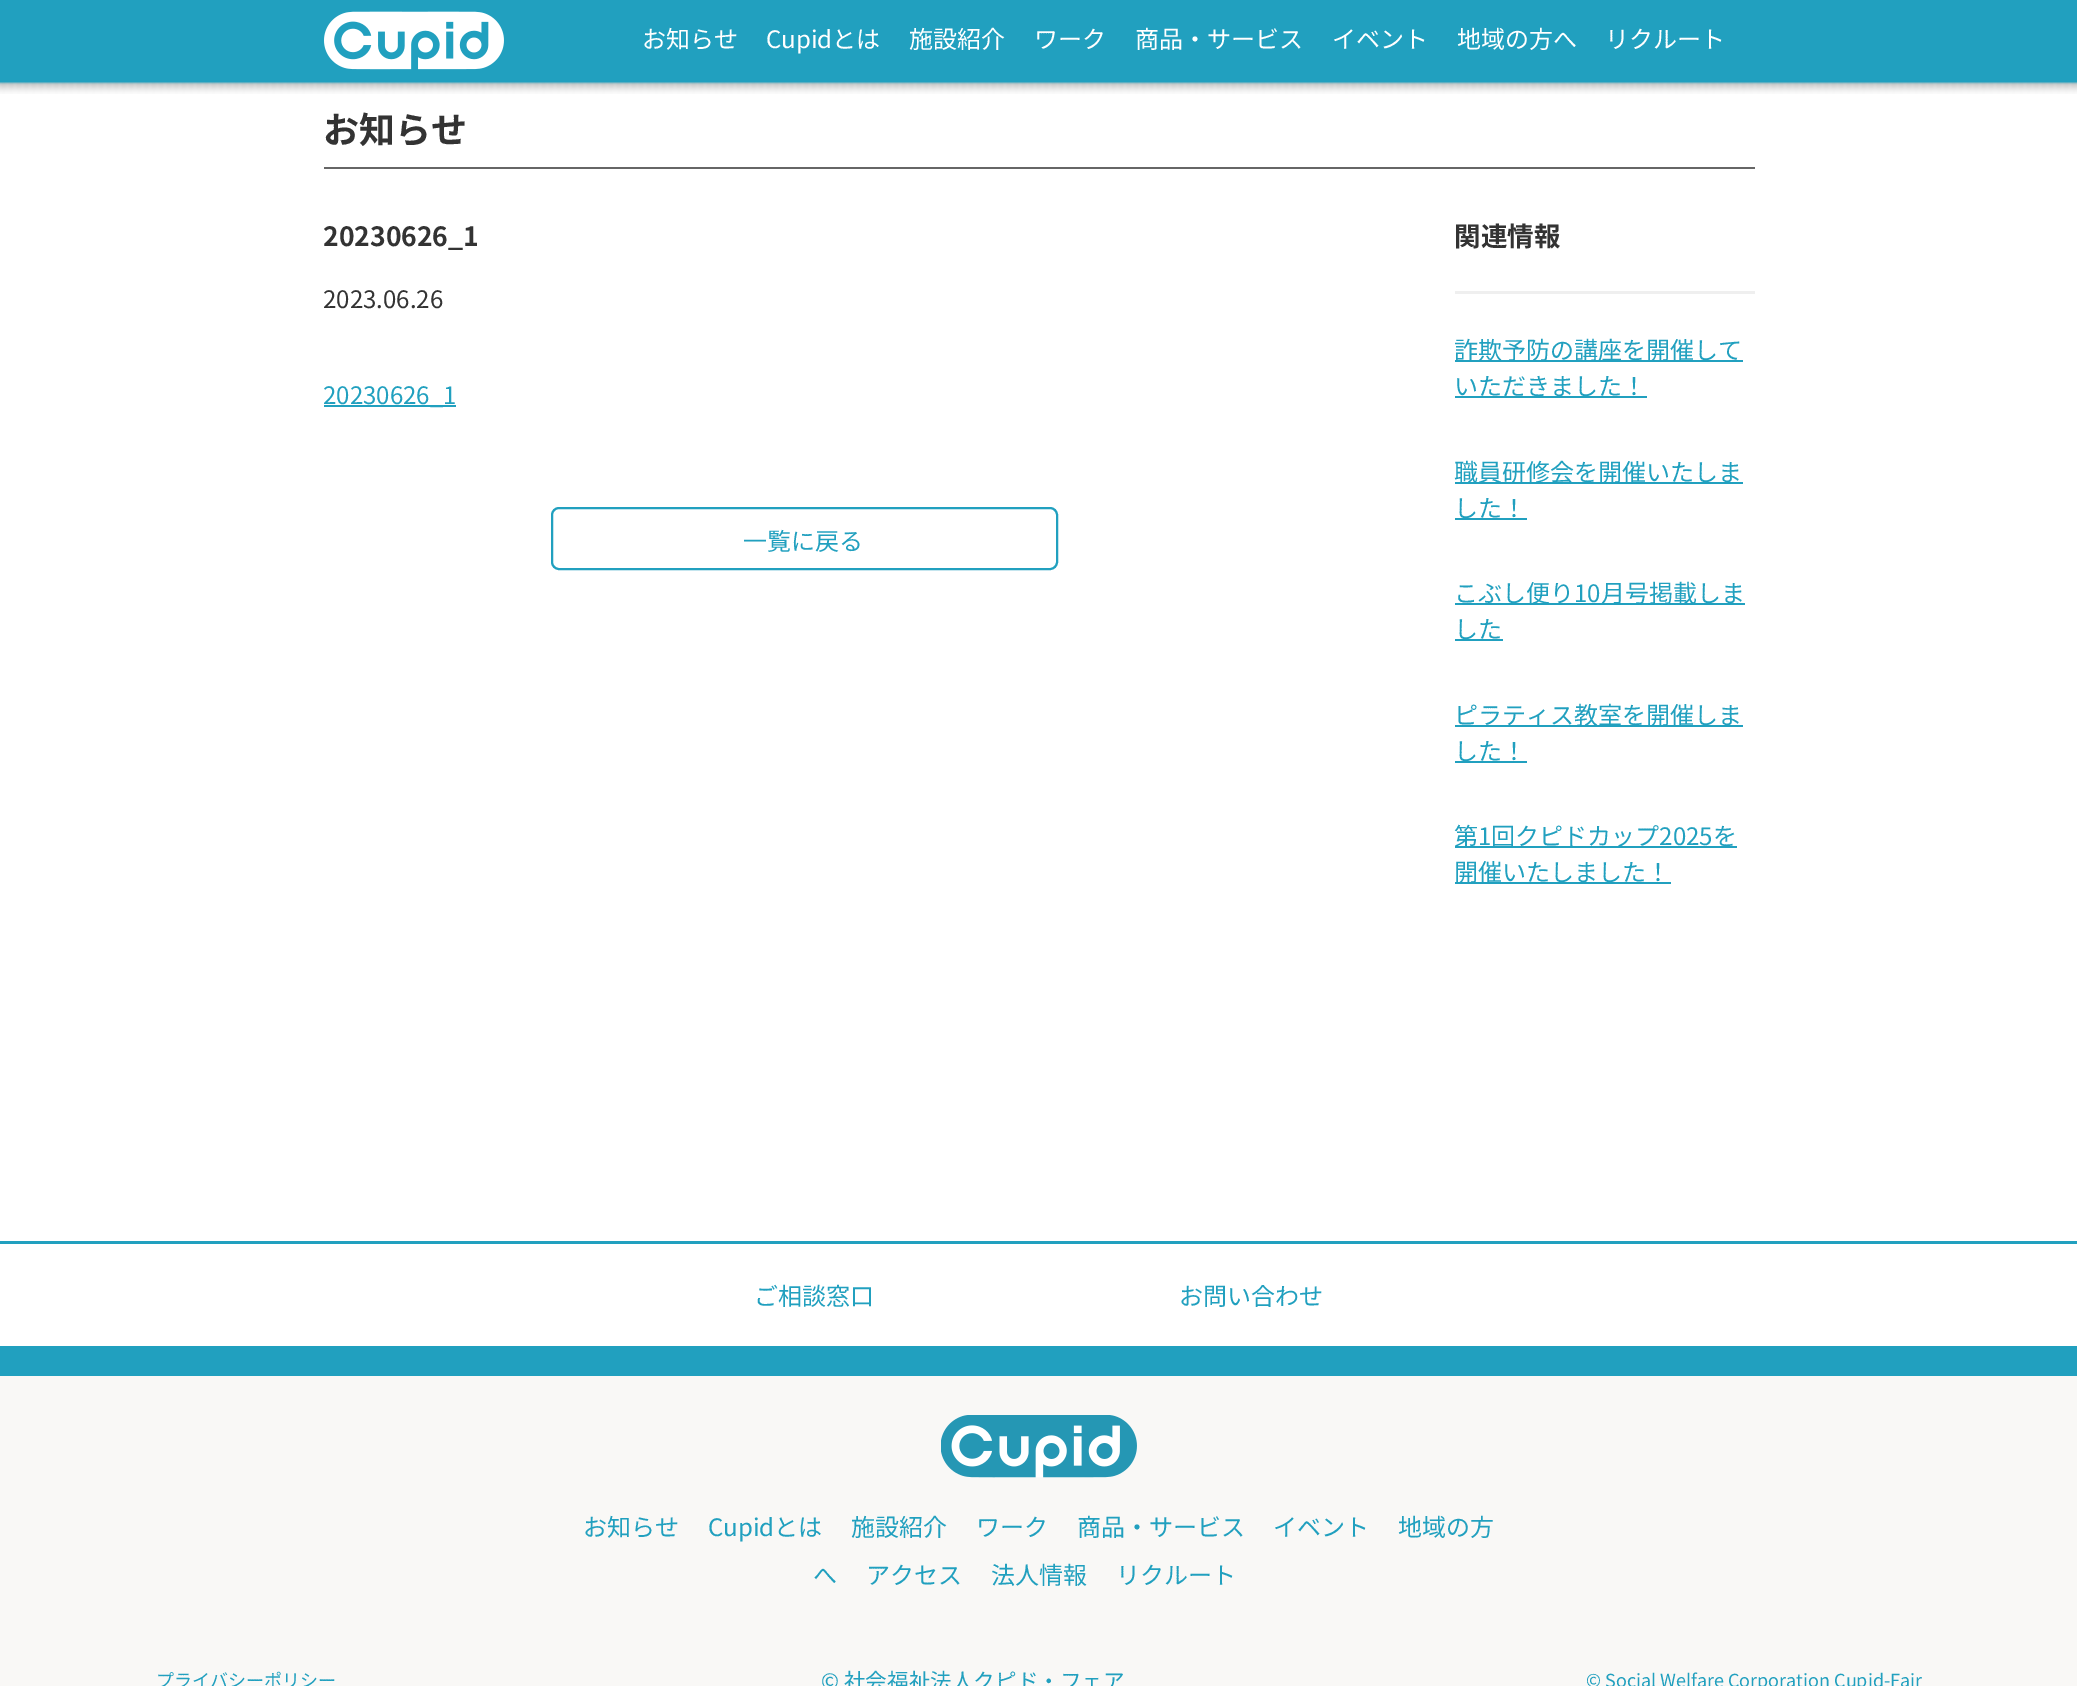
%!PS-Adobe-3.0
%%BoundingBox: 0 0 2077 1686
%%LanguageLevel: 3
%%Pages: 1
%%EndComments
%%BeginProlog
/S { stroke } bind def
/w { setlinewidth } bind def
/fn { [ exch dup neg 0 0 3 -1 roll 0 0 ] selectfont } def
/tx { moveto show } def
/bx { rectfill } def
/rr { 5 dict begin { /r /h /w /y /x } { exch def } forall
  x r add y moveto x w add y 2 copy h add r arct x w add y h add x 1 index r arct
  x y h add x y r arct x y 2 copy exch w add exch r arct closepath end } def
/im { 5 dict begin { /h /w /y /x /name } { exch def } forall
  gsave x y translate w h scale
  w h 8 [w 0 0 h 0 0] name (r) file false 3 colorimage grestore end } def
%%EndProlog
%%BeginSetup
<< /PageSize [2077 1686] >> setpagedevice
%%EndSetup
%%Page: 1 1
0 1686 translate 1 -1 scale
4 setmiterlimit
1 setgray
0 0 2077 1686 bx
(image0.raw) 0 0 2077 94 im
(image1.raw) 324 11 180 59 im
/NotoSansJP-Thin 24 fn
(お知らせ) 642 48 tx
(Cupidとは) 766 48 tx
(施設紹介) 909 48 tx
(ワーク) 1034 48 tx
(商品・サービス) 1135 48 tx
(イベント) 1332 48 tx
(地域の方へ) 1457 48 tx
(リクルート) 1605 48 tx
0.4 setgray
324 167 1431 2 bx
/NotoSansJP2-Thin 36 fn
0.2 setgray
(お知らせ) 323 143 tx
/NotoSansJP2-Thin 26.5 fn
(20230626_1) 323 246 tx
/NotoSansJP-Thin 24 fn
(2023.06.26) 323 308 tx
0.129 0.627 0.749 setrgbcolor
324 405 132 2 bx
(20230626_1) 323 404 tx
2 w
552 508 505 61 7 rr S
(一覧に戻る) 743 550 tx
/NotoSansJP2-Thin 26.5 fn
0.2 setgray
(関連情報) 1454 246 tx
0.937 setgray
1455 291 300 3 bx
0.129 0.627 0.749 setrgbcolor
1455 360 288 2 bx
/NotoSansJP-Thin 24 fn
(詐欺予防の講座を開催して) 1454 359 tx
1455 396 192 2 bx
(いただきました！) 1454 395 tx
1455 482 288 2 bx
(職員研修会を開催いたしま) 1454 481 tx
1455 518 72 2 bx
(した！) 1454 517 tx
1455 603 290 2 bx
(こぶし便り10月号掲載しま) 1454 602 tx
1455 639 48 2 bx
(した) 1454 638 tx
1455 725 288 2 bx
(ピラティス教室を開催しま) 1454 724 tx
1455 761 72 2 bx
(した！) 1454 760 tx
1455 846 282 2 bx
(第1回クピドカップ2025を) 1454 845 tx
1455 882 216 2 bx
(開催いたしました！) 1454 881 tx
0.976 0.973 0.965 setrgbcolor
0 1376 2077 310 bx
0.129 0.627 0.749 setrgbcolor
0 1241 2077 3 bx
0 1346 2077 30 bx
(ご相談窓口) 754 1305 tx
(お問い合わせ) 1179 1305 tx
(image2.raw) 941 1415 196 63 im
(お知らせ) 583 1536 tx
(Cupidとは) 708 1536 tx
(施設紹介) 851 1536 tx
(ワーク) 976 1536 tx
(商品・サービス) 1077 1536 tx
(イベント) 1273 1536 tx
(地域の方) 1398 1536 tx
(へ) 813 1584 tx
(アクセス) 866 1584 tx
(法人情報) 991 1584 tx
(リクルート) 1116 1584 tx
/NotoSansJP-Thin 18 fn
(プライバシーポリシー) 156 1687 tx
/NotoSansJP-Thin 21.6 fn
(© 社会福祉法人クピド・フェア) 821 1689 tx
/NotoSansJP-Thin 18 fn
(© Social Welfare Corporation Cupid-Fair) 1586 1687 tx
showpage
%%EOF
